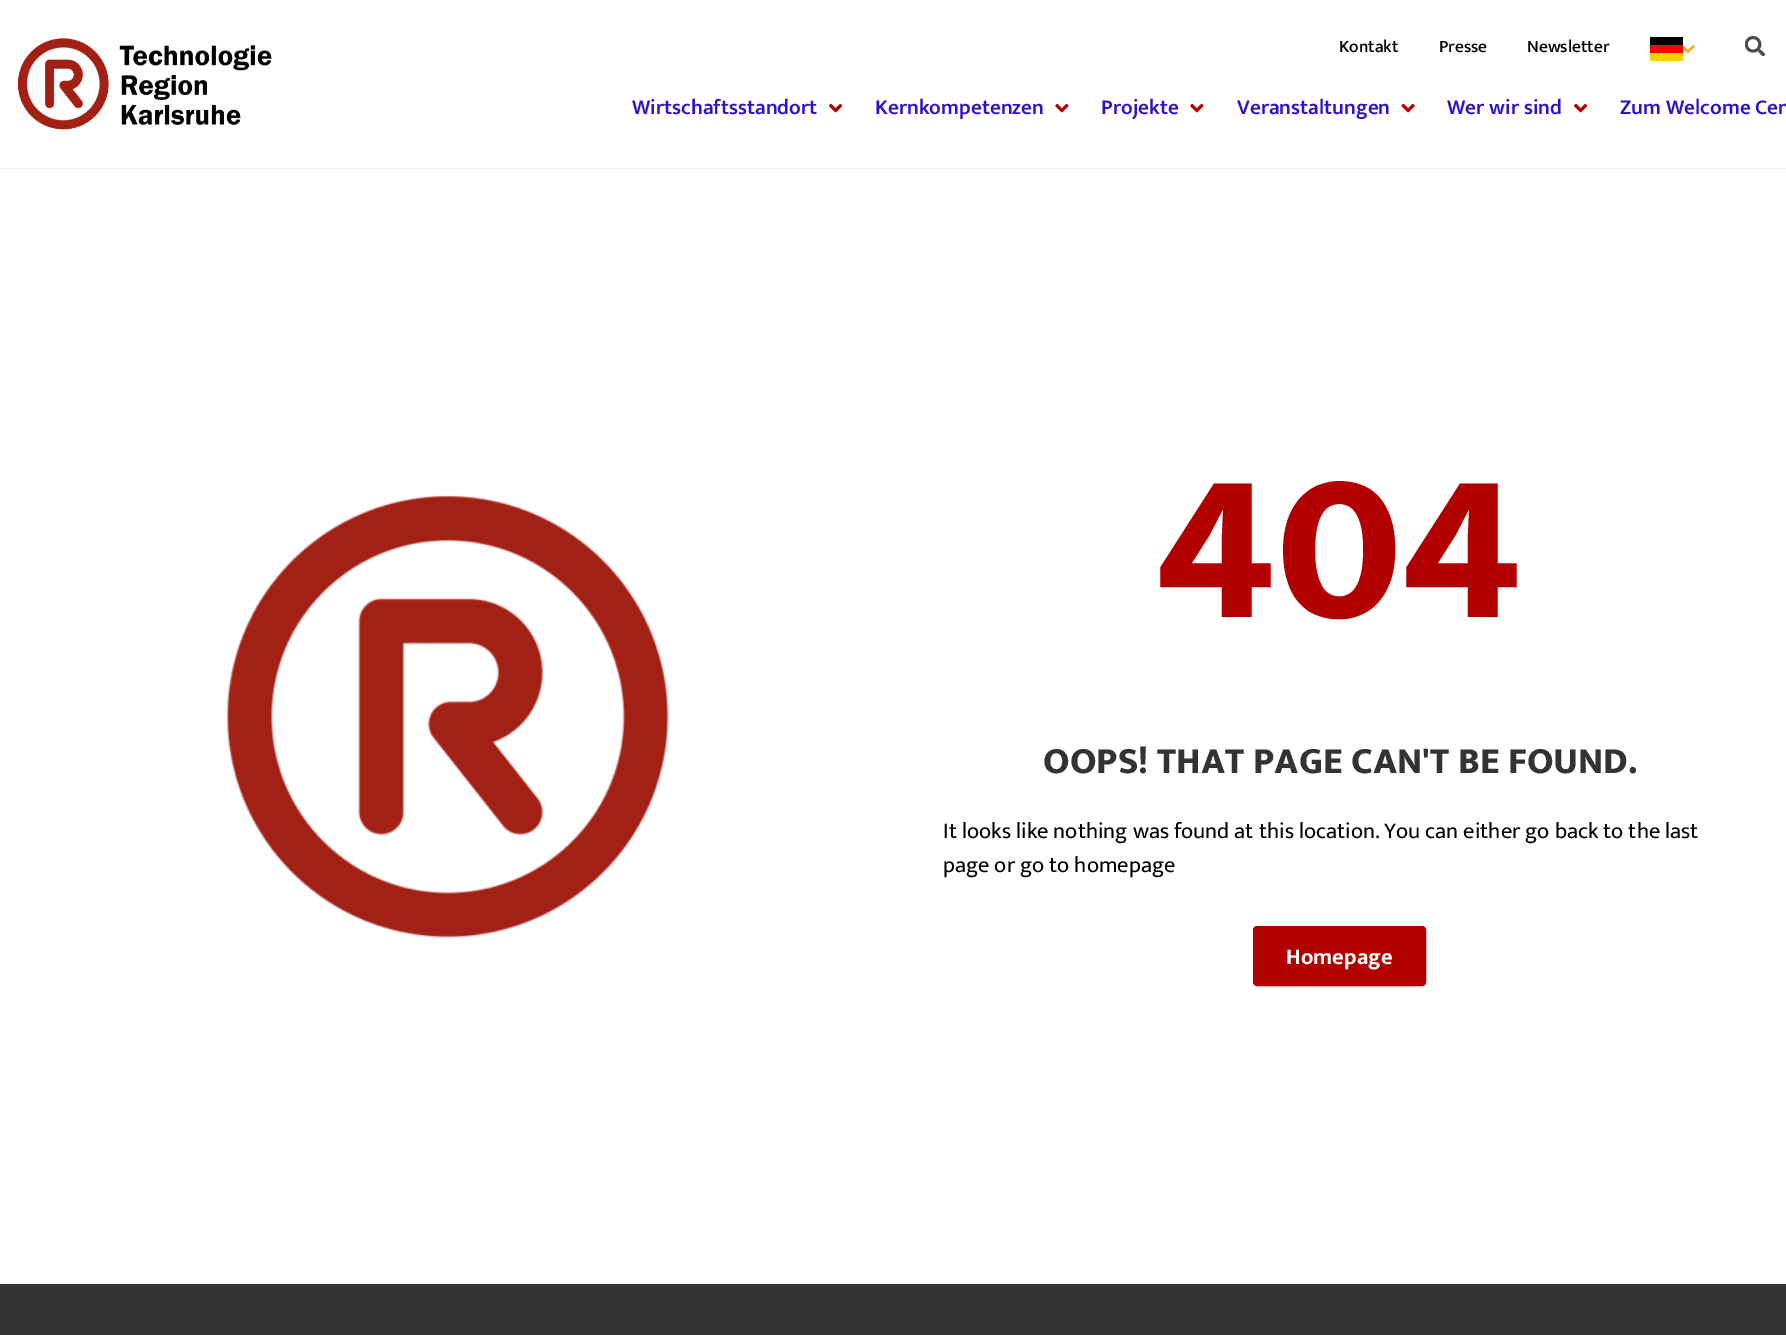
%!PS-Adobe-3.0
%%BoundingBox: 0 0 1786 1335
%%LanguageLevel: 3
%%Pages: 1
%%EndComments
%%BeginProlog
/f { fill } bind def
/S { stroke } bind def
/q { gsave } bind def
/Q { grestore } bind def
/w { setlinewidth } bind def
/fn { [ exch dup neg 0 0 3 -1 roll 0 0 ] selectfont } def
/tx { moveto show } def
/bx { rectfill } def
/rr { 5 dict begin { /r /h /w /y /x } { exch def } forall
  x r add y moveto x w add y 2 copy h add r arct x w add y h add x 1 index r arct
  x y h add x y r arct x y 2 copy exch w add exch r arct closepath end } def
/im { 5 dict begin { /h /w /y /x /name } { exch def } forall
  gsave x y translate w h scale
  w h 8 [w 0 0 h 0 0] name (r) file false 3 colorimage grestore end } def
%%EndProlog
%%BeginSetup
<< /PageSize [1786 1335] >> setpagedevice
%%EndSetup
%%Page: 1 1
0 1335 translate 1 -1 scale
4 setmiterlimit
1 setgray
0 0 1786 1335 bx
0.929 setgray
0 168 1786 1 bx
(image0.raw) 17 38 255 92 im
/Mukta-Medium 17.5 fn
0 setgray
(Kontakt) 1339 52 tx
(Presse) 1439 52 tx
(Newsletter) 1527 52 tx
1 0.8 0 setrgbcolor
1650 53 33 8 bx
0 0 0.004 setrgbcolor
1650 37 33 8 bx
1 0 0 setrgbcolor
1650 45 33 8 bx
(image1.raw) 1683 45 12 9 im
(image2.raw) 1745 36 20 20 im
/Mukta-SemiBold 21.25 fn
0.176 0.078 0.769 setrgbcolor
(Wirtschaftsstandort) 632 114 tx
(image3.raw) 829 103 14 10 im
(Kernkompetenzen) 875 114 tx
(image4.raw) 1055 103 14 10 im
(Projekte) 1101 114 tx
(image4.raw) 1190 103 14 10 im
(Veranstaltungen) 1237 114 tx
(image5.raw) 1401 103 14 10 im
(Wer wir sind) 1447 114 tx
(image3.raw) 1574 103 14 10 im
(Zum Welcome Cen) 1620 114 tx
(image6.raw) 226 495 443 443 im
/Mukta-ExtraBold 212 fn
0.698 0 0 setrgbcolor
(404) 1156 617 tx
/Mukta-ExtraBold 37.5 fn
0.2 setgray
(OOPS! THAT PAGE CAN'T BE FOUND.) 1043 773 tx
/Mukta-Regular 22.5 fn
0 setgray
(It looks like nothing was found at this location. You can either go back to the last) 943 838 tx
(page or go to homepage) 943 872 tx
0.698 0 0 setrgbcolor
1254.5 927.5 170 57 2.5 rr q f Q
3 w
S
/Mukta-Bold 22.5 fn
1 setgray
(Homepage) 1286 964 tx
0.2 setgray
0 1284 1786 51 bx
showpage
%%EOF
